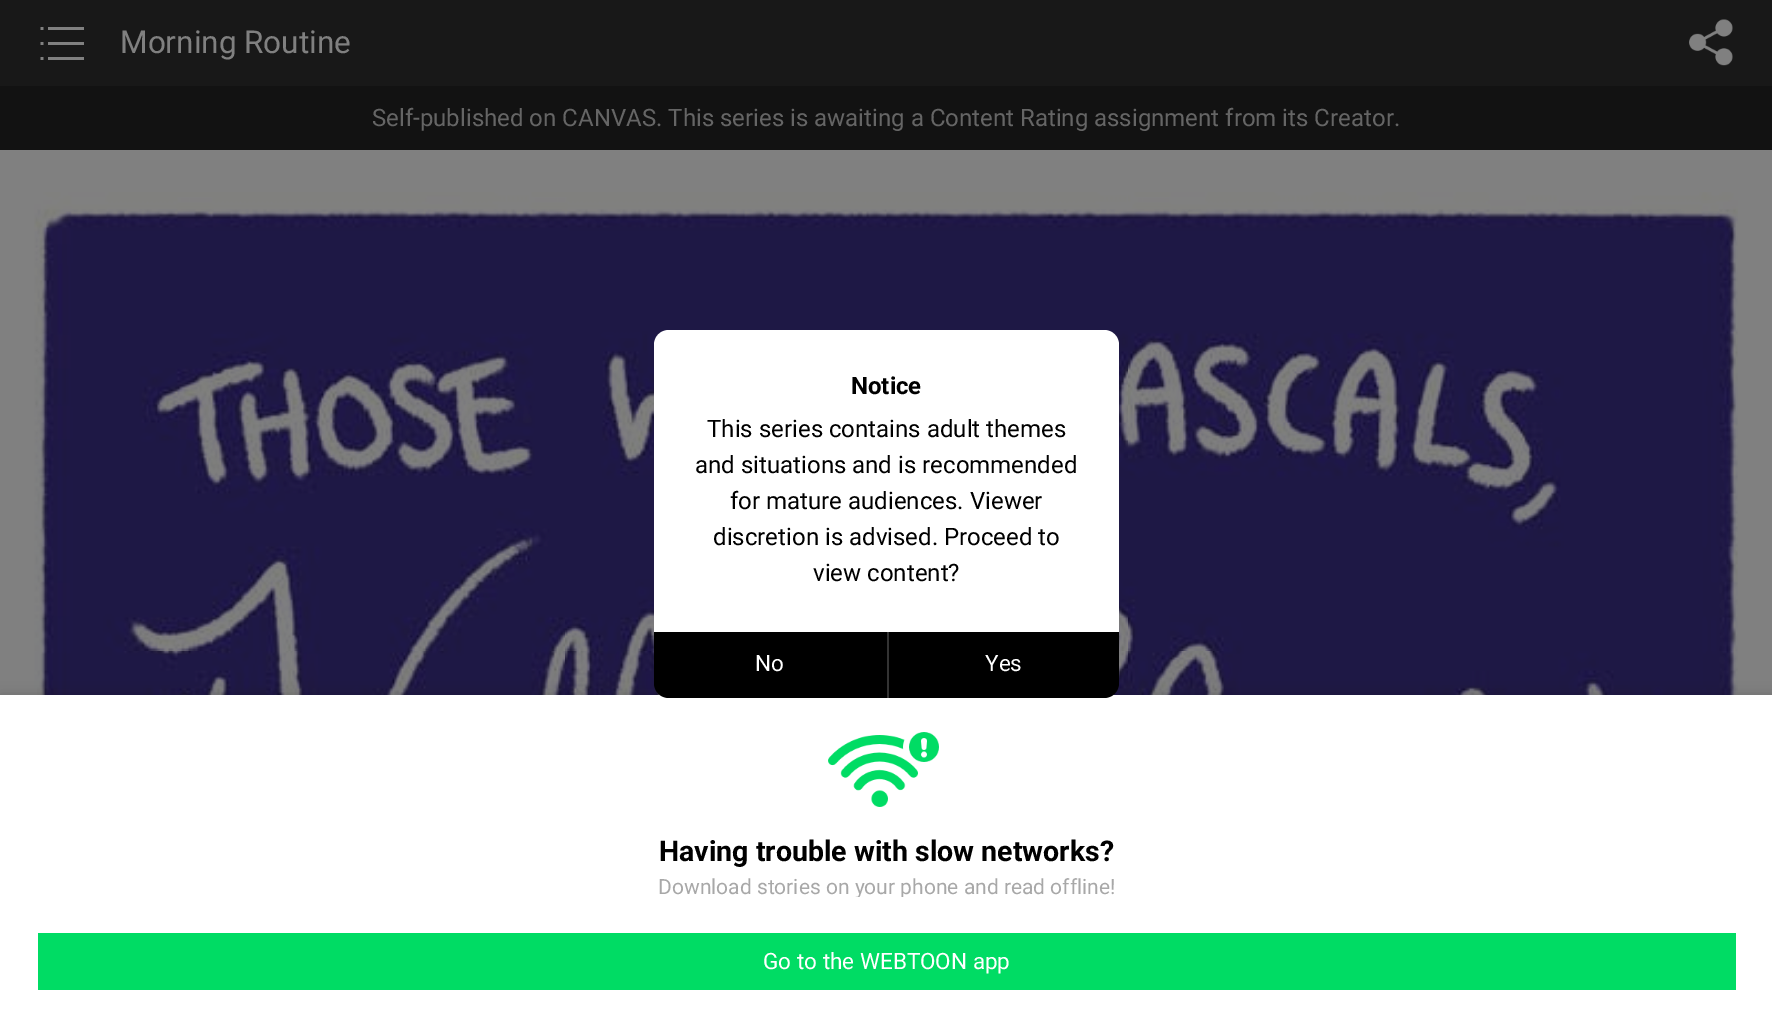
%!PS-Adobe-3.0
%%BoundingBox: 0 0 1772 1025
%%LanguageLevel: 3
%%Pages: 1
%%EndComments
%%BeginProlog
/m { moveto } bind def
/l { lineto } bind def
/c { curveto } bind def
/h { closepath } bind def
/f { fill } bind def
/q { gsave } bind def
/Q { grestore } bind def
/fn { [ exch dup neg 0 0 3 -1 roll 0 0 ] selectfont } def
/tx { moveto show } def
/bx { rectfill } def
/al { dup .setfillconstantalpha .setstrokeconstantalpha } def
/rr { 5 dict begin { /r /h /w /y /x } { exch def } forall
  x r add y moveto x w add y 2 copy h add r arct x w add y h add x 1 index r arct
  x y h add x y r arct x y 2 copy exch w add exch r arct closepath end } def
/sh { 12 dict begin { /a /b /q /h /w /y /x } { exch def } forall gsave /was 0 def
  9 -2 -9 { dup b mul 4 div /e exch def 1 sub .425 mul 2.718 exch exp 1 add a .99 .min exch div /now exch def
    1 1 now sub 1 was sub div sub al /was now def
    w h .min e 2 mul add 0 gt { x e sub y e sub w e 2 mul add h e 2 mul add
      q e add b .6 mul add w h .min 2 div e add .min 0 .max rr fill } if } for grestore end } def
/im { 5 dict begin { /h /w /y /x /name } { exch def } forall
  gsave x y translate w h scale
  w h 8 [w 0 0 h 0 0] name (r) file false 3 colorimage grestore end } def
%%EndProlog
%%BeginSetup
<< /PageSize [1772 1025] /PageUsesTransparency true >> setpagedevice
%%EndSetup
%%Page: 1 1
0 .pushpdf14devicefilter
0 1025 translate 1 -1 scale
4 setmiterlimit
0.502 setgray
0 0 1772 1025 bx
0.094 setgray
0 0 1772 86 bx
(image0.raw) 40 27 44 33 im
/Roboto-Regular 31.5 fn
0.502 setgray
(Morning Routine) 120 53 tx
(image1.raw) 1689 19 44 47 im
0.071 setgray
0 86 1772 64 bx
/Roboto-Regular 24 fn
0.396 setgray
(Self-published on CANVAS. This series is awaiting a Content Rating assignment from its Creator.) 372 126 tx
(image2.raw) 34 192 1704 503 im
1 setgray
669 330 m 1104 330 l 1112.5 330 1119 336.5 1119 345 c 1119 632 l 654 632 l 654 345 l 654 336.5 660.5 330 669 330 c h f
/Roboto-Bold 24 fn
0 setgray
(Notice) 851 394 tx
/Roboto-Regular 24 fn
(This series contains adult themes) 707 437 tx
(and situations and is recommended) 695 473 tx
(for mature audiences. Viewer) 730 509 tx
(discretion is advised. Proceed to) 713 545 tx
(view content?) 813 581 tx
0 698 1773 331 0 7.5 0.2 sh
1 setgray
0 695 1772 330 bx
0 setgray
654 632 m 1119 632 l 1119 683 l 1119 691.5 1112.5 698 1104 698 c 669 698 l 660.5 698 654 691.5 654 683 c h f
/Roboto-Regular 22.5 fn
1 setgray
(No) 755 671 tx
0.2 setgray
887 632 2 66 bx
1 setgray
(Yes) 985 671 tx
(image3.raw) 828 732 111 75 im
/Roboto-Bold 28.5 fn
0 setgray
(Having trouble with slow networks?) 659 861 tx
q
38 876 1698 21 rectclip
/Roboto-Regular 21 fn
0.659 setgray
(Download stories on your phone and read offline!) 658 894 tx
Q
0 0.863 0.392 setrgbcolor
38 933 1698 57 bx
/Roboto-Regular 22.5 fn
1 setgray
(Go to the WEBTOON app) 763 969 tx
.poppdf14devicefilter showpage
%%EOF
